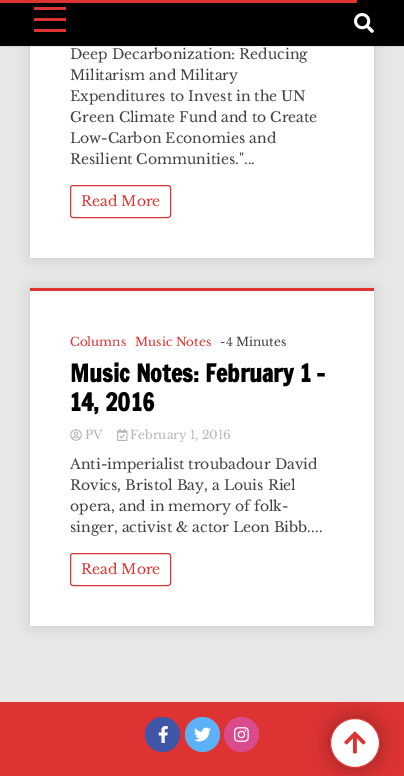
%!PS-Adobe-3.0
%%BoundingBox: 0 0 404 776
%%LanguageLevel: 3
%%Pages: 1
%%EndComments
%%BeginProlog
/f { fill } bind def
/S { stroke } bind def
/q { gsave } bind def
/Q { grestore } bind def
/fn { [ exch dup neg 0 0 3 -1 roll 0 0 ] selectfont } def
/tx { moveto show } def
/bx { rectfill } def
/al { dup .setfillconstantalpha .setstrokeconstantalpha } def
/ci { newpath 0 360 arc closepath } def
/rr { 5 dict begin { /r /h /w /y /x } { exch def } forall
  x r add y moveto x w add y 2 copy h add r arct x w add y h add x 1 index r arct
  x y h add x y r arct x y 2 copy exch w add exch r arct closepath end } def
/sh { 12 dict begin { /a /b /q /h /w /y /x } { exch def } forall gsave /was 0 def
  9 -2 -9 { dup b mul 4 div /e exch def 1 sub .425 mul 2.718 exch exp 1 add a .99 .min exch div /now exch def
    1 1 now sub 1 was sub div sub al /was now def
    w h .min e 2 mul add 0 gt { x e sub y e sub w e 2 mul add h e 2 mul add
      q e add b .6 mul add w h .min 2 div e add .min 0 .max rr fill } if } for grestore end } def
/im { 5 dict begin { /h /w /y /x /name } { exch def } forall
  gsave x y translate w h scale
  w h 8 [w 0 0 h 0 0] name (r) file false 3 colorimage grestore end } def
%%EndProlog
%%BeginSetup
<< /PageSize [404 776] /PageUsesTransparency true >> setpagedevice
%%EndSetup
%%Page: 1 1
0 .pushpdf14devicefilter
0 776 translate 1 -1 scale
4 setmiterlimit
0.91 setgray
0 0 404 776 bx
0 setgray
30 -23 344 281 0 7.5 0.13 sh
1 setgray
30 46 344 212 bx
0.06 al
0 setgray
-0.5 -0.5 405 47 rectstroke
1 al
0 0 404 46 bx
0.867 0.2 0.2 setrgbcolor
34 7 32 3 bx
34 18 32 3 bx
34 29 32 3 bx
(image0.raw) 354 13 20 20 im
0 0 357 3 bx
/LibreBaskerville-Regular 14 fn
0.251 setgray
(Deep Decarbonization: Reducing) 70 59 tx
(Militarism and Military) 70 80 tx
(Expenditures to Invest in the UN) 70 101 tx
(Green Climate Fund and to Create) 70 122 tx
(Low-Carbon Economies and) 70 143 tx
(Resilient Communities."...) 70 164 tx
0.867 0.2 0.2 setrgbcolor
70.5 185.5 100 32 2.5 rr S
(Read More) 81 206 tx
0 setgray
30 288 344 338 0 7.5 0.13 sh
1 setgray
30 291 344 335 bx
0.867 0.2 0.2 setrgbcolor
30 288 344 3 bx
/LibreBaskerville-Regular 12 fn
(Columns) 70 346 tx
(Music Notes) 135 346 tx
0.251 setgray
(-4 Minutes) 220 346 tx
/FrancoisOne-Bold 24 fn
0 setgray
(Music Notes: February 1 –) 70 382 tx
(14, 2016) 70 411 tx
(image1.raw) 70 429 12 12 im
/LibreBaskerville-Regular 12 fn
0.71 setgray
(PV) 85 439 tx
(image2.raw) 117 429 11 12 im
(February 1, 2016) 130 439 tx
/LibreBaskerville-Regular 14 fn
0.251 setgray
(Anti-imperialist troubadour David) 70 469 tx
(Rovics, Bristol Bay, a Louis Riel) 70 490 tx
(opera, and in memory of folk-) 70 511 tx
(singer, activist & actor Leon Bibb....) 70 532 tx
0.867 0.2 0.2 setrgbcolor
70.5 553.5 100 32 2.5 rr S
(Read More) 81 574 tx
0 702 404 74 bx
0.247 0.333 0.655 setrgbcolor
162.5 734.5 17.5 ci f
(image3.raw) 158 726 10 17 im
0.365 0.698 0.969 setrgbcolor
202.5 734.5 17.5 ci f
(image4.raw) 194 727 17 15 im
0.855 0.29 0.549 setrgbcolor
241.5 734.5 17.5 ci f
(image5.raw) 234 727 15 15 im
0 setgray
330 718 50 50 25 10 0.28 sh
1 setgray
355 743 24.5 ci q f Q
0.867 0.2 0.2 setrgbcolor
S
(image6.raw) 344 731 22 23 im
.poppdf14devicefilter showpage
%%EOF
